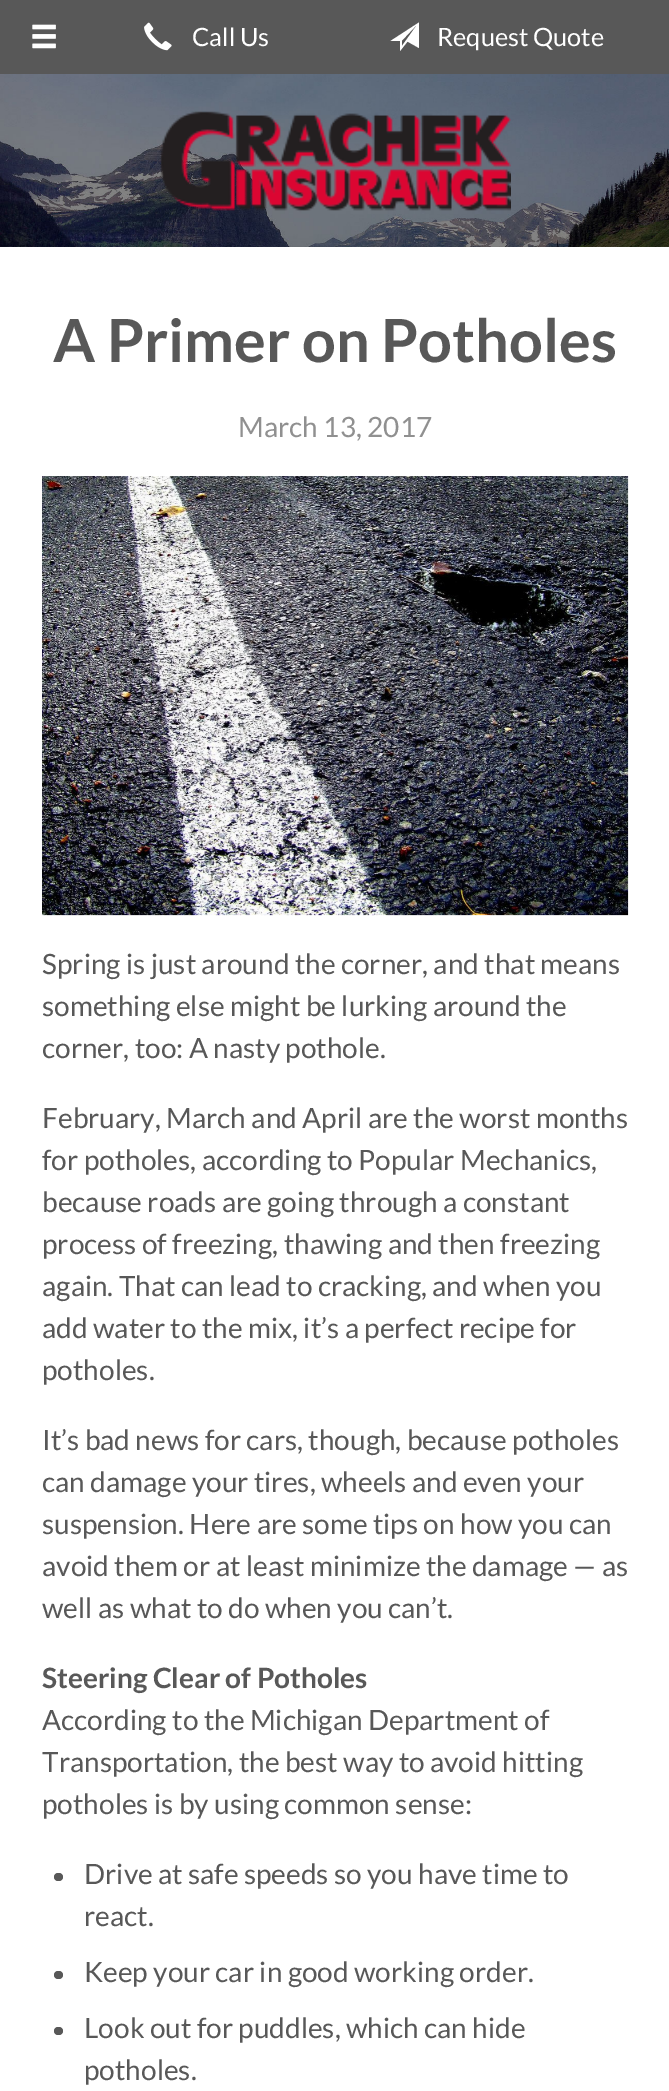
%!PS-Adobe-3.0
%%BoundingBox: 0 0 669 2091
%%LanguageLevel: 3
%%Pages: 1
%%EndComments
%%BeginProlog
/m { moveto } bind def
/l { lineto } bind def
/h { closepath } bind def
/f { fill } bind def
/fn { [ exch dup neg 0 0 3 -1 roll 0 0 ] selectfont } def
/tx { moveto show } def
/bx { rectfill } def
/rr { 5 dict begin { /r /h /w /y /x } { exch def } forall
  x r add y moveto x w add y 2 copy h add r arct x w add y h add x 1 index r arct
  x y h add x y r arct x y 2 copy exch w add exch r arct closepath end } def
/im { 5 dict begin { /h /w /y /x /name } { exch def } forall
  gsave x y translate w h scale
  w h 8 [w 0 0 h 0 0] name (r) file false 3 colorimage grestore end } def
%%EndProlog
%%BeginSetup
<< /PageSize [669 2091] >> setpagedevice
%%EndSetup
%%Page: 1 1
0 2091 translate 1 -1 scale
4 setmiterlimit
0.345 setgray
0 0 669 2091 bx
(image0.raw) 32 24 24 25 im
(image1.raw) 144 22 28 29 im
/Lato-Regular 25.25 fn
1 setgray
(Call Us) 192 46 tx
390.5 41 m 400 41 l 400 51 l 407.5 41.5 l 419 48 l 419 22.5 l h 402 46 m 402 40.5 l 418 23.5 l h f
(Request Quote) 437 46 tx
(image2.raw) 0 74 669 173 im
(image3.raw) 160 111 351 100 im
0 247 669 1844 bx
/Lato-Bold 59.5 fn
0.345 setgray
(A Primer on Potholes) 53 362 tx
/Lato-Regular 28 fn
0.565 setgray
(March 13, 2017) 238 437 tx
(image4.raw) 42 476 587 440 im
0.345 setgray
(Spring is just around the corner, and that means) 42 974 tx
(something else might be lurking around the) 42 1016 tx
(corner, too: A nasty pothole.) 42 1058 tx
(February, March and April are the worst months) 42 1128 tx
(for potholes, according to Popular Mechanics,) 42 1170 tx
(because roads are going through a constant) 42 1212 tx
(process of freezing, thawing and then freezing) 42 1254 tx
(again. That can lead to cracking, and when you) 42 1296 tx
(add water to the mix, it’s a perfect recipe for) 42 1338 tx
(potholes.) 42 1380 tx
(It’s bad news for cars, though, because potholes) 42 1450 tx
(can damage your tires, wheels and even your) 42 1492 tx
(suspension. Here are some tips on how you can) 42 1534 tx
(avoid them or at least minimize the damage — as) 42 1576 tx
(well as what to do when you can’t.) 42 1618 tx
/Lato-Bold 28 fn
(Steering Clear of Potholes) 42 1688 tx
/Lato-Regular 28 fn
(According to the Michigan Department of) 42 1730 tx
(Transportation, the best way to avoid hitting) 42 1772 tx
(potholes is by using common sense:) 42 1814 tx
54 1873 9 8 4 rr f
(Drive at safe speeds so you have time to) 84 1884 tx
(react.) 84 1926 tx
54 1971 9 8 4 rr f
(Keep your car in good working order.) 84 1982 tx
54 2027 9 8 4 rr f
(Look out for puddles, which can hide) 84 2038 tx
(potholes.) 84 2080 tx
showpage
%%EOF
